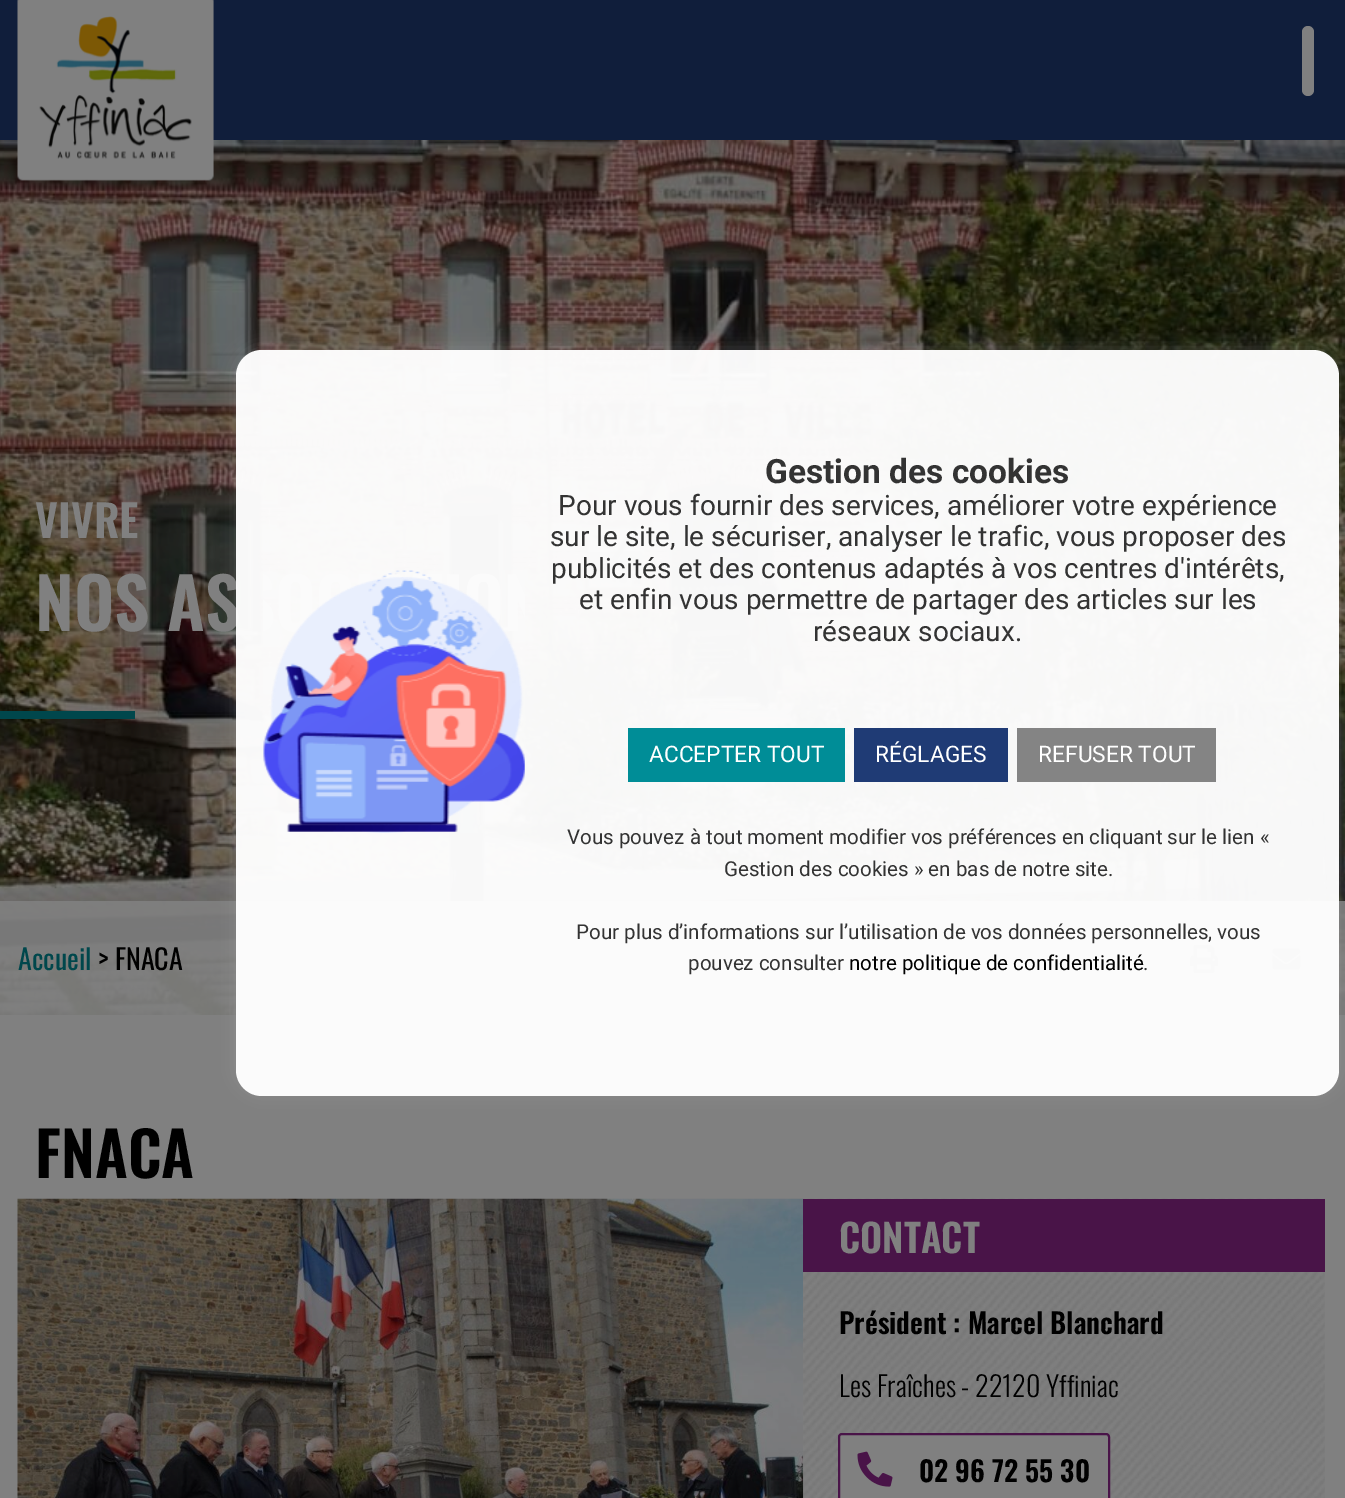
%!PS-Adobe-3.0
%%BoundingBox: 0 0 1345 1498
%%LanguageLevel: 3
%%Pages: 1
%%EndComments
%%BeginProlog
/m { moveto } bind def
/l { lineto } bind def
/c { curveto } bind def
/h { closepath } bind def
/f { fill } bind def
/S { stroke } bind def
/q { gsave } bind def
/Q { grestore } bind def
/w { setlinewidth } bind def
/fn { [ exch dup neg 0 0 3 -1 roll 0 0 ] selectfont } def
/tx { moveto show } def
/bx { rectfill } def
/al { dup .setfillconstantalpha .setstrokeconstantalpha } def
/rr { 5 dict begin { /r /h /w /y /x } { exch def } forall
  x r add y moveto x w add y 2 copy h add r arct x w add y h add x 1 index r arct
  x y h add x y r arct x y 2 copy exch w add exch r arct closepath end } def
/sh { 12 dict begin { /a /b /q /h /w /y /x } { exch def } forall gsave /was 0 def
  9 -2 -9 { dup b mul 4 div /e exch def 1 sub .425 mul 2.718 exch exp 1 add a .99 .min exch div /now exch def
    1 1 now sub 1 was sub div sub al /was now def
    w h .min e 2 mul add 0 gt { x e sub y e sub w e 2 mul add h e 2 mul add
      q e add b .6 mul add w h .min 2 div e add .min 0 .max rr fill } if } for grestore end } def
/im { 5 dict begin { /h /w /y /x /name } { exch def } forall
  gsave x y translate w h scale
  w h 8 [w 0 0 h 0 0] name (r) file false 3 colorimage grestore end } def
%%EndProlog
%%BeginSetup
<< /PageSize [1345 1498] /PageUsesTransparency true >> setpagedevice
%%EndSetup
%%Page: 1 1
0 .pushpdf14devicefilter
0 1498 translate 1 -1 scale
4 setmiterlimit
0.502 setgray
0 0 1345 1498 bx
0.063 0.118 0.231 setrgbcolor
0 0 1345 140 bx
(image2.raw) 0 140 1345 875 im
(image0.raw) 17 0 197 181 im
0.502 setgray
1302 26 12 70 6 rr f
0.9 al
0 901 1345 114 bx
1 al
(image3.raw) 1190 945 28 28 im
(image4.raw) 1272 948 29 22 im
q
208 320 m 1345 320 l 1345 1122 l 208 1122 l h 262 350 m 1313 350 l 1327.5 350 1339 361.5 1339 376 c 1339 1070 l 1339 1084.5 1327.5 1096 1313 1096 c 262 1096 l 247.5 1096 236 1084.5 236 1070 c 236 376 l 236 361.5 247.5 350 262 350 c h eoclip newpath
0.675 0.671 0.671 setrgbcolor
236 348 1103 746 26 9 0.3 sh
Q
/Oswald-SemiBold 70 fn
(NOS AS) 35 631 tx
0.97 al
1 setgray
236 350 1103 746 26 rr f
1 al
(image1.raw) 263 570 262 263 im
/Roboto-Bold 33.5 fn
0.2 setgray
(Gestion des cookies) 765 483 tx
/Roboto-Regular 28 fn
(Pour vous fournir des services, améliorer votre expérience) 558 515 tx
(sur le site, le sécuriser, analyser le trafic, vous proposer des) 550 546 tx
(publicités et des contenus adaptés à vos centres d'intérêts,) 551 578 tx
(et enfin vous permettre de partager des articles sur les) 579 609 tx
(réseaux sociaux.) 813 641 tx
0 0.553 0.592 setrgbcolor
628 728 217 54 bx
/Roboto-Regular 22.75 fn
1 setgray
(ACCEPTER TOUT) 649 762 tx
0.122 0.231 0.459 setrgbcolor
854 728 154 54 bx
1 setgray
(RÉGLAGES) 875 762 tx
0.518 setgray
1017 728 199 54 bx
1 setgray
(REFUSER TOUT) 1038 762 tx
/Roboto-Regular 20.55 fn
0.2 setgray
(Vous pouvez à tout moment modifier vos préférences en cliquant sur le lien «) 567 844 tx
(Gestion des cookies » en bas de notre site.) 724 876 tx
(Pour plus d’informations sur l’utilisation de vos données personnelles, vous) 576 939 tx
(pouvez consulter) 688 970 tx
0 setgray
(notre politique de confidentialité) 849 970 tx
0.2 setgray
(.) 1143 970 tx
/Oswald-SemiBold 44 fn
0.502 setgray
(VIVRE) 35 538 tx
0 0.278 0.298 setrgbcolor
0 711 135 8 bx
/Oswald-Regular 28 fn
(Accueil) 18 970 tx
0 setgray
(> FNACA) 98 970 tx
/Oswald-SemiBold 61 fn
(FNACA) 35 1178 tx
(image5.raw) 17 1198 787 300 im
(image6.raw) 803 1198 522 300 im
0.286 0.078 0.282 setrgbcolor
803 1199 522 73 bx
/Oswald-SemiBold 38.5 fn
0.502 setgray
(CONTACT) 839 1253 tx
/Oswald-SemiBold 28 fn
0 setgray
(Président : Marcel Blanchard) 839 1334 tx
/Oswald-Light 28 fn
(Les Fraîches - 22120 Yffiniac) 839 1397 tx
0.502 setgray
839 1434 270 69 3 rr q f Q
0.286 0.078 0.282 setrgbcolor
2 w
S
(image7.raw) 857 1451 36 36 im
/Oswald-SemiBold 28 fn
0 setgray
(02 96 72 55 30) 919 1482 tx
.poppdf14devicefilter showpage
%%EOF
